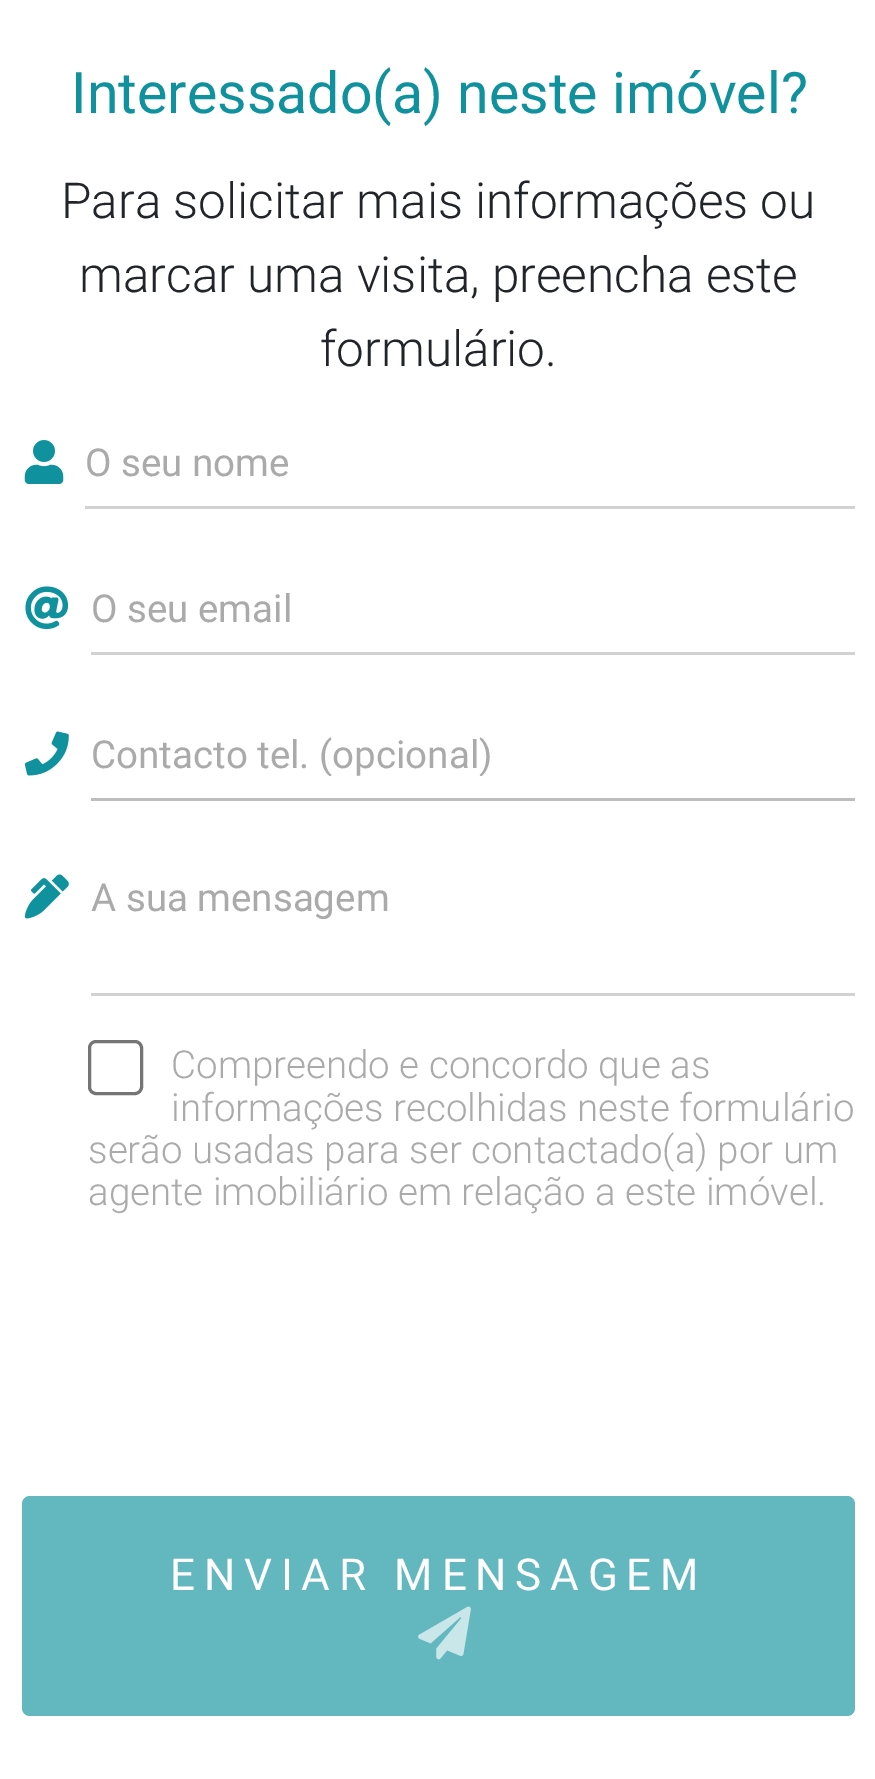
%!PS-Adobe-3.0
%%BoundingBox: 0 0 875 1779
%%LanguageLevel: 3
%%Pages: 1
%%EndComments
%%BeginProlog
/m { moveto } bind def
/f { fill } bind def
/S { stroke } bind def
/q { gsave } bind def
/Q { grestore } bind def
/w { setlinewidth } bind def
/fn { [ exch dup neg 0 0 3 -1 roll 0 0 ] selectfont } def
/tx { moveto show } def
/bx { rectfill } def
/rr { 5 dict begin { /r /h /w /y /x } { exch def } forall
  x r add y moveto x w add y 2 copy h add r arct x w add y h add x 1 index r arct
  x y h add x y r arct x y 2 copy exch w add exch r arct closepath end } def
/im { 5 dict begin { /h /w /y /x /name } { exch def } forall
  gsave x y translate w h scale
  w h 8 [w 0 0 h 0 0] name (r) file false 3 colorimage grestore end } def
%%EndProlog
%%BeginSetup
<< /PageSize [875 1779] >> setpagedevice
%%EndSetup
%%Page: 1 1
0 1779 translate 1 -1 scale
4 setmiterlimit
1 setgray
0 0 875 1779 bx
/Roboto-Regular 57.25 fn
0.059 0.573 0.62 setrgbcolor
(Interessado\(a\) neste imóvel?) 71 113 tx
/Roboto-Light 49.5 fn
0.129 0.145 0.161 setrgbcolor
(Para solicitar mais informações ou) 61 218 tx
(marcar uma visita, preencha este) 79 292 tx
(formulário.) 320 366 tx
(image0.raw) 24 440 40 44 im
0.824 setgray
85 506 770 3 bx
/Roboto-Regular 38.5 fn
0.667 setgray
(O seu nome) 85 476 tx
(image1.raw) 25 586 44 44 im
0.824 setgray
91 652 764 3 bx
0.667 setgray
(O seu email) 91 622 tx
(image2.raw) 24 731 45 45 im
0.741 setgray
91 798 764 3 bx
q
91 732 764 44 rectclip
0.667 setgray
(Contacto tel. \(opcional\)) 91 768 tx
Q
(image3.raw) 24 874 45 45 im
0.824 setgray
91 993 764 3 bx
0.667 setgray
(A sua mensagem) 91 911 tx
0.459 setgray
3 w
89.5 1041.5 52 52 6.5 rr S
/Roboto-Light 38.5 fn
0.667 setgray
(Compreendo e concordo que as) 171 1078 tx
(informações recolhidas neste formulário) 171 1121 tx
(serão usadas para ser contactado\(a\) por um) 88 1163 tx
(agente imobiliário em relação a este imóvel.) 88 1205 tx
0.388 0.722 0.753 setrgbcolor
22 1496 833 220 8 rr f
/Roboto-Regular 44 fn
1 setgray
170 1590 m 8.75 0 (ENVIAR MENSAGEM) ashow
(image4.raw) 418 1606 53 54 im
showpage
%%EOF
